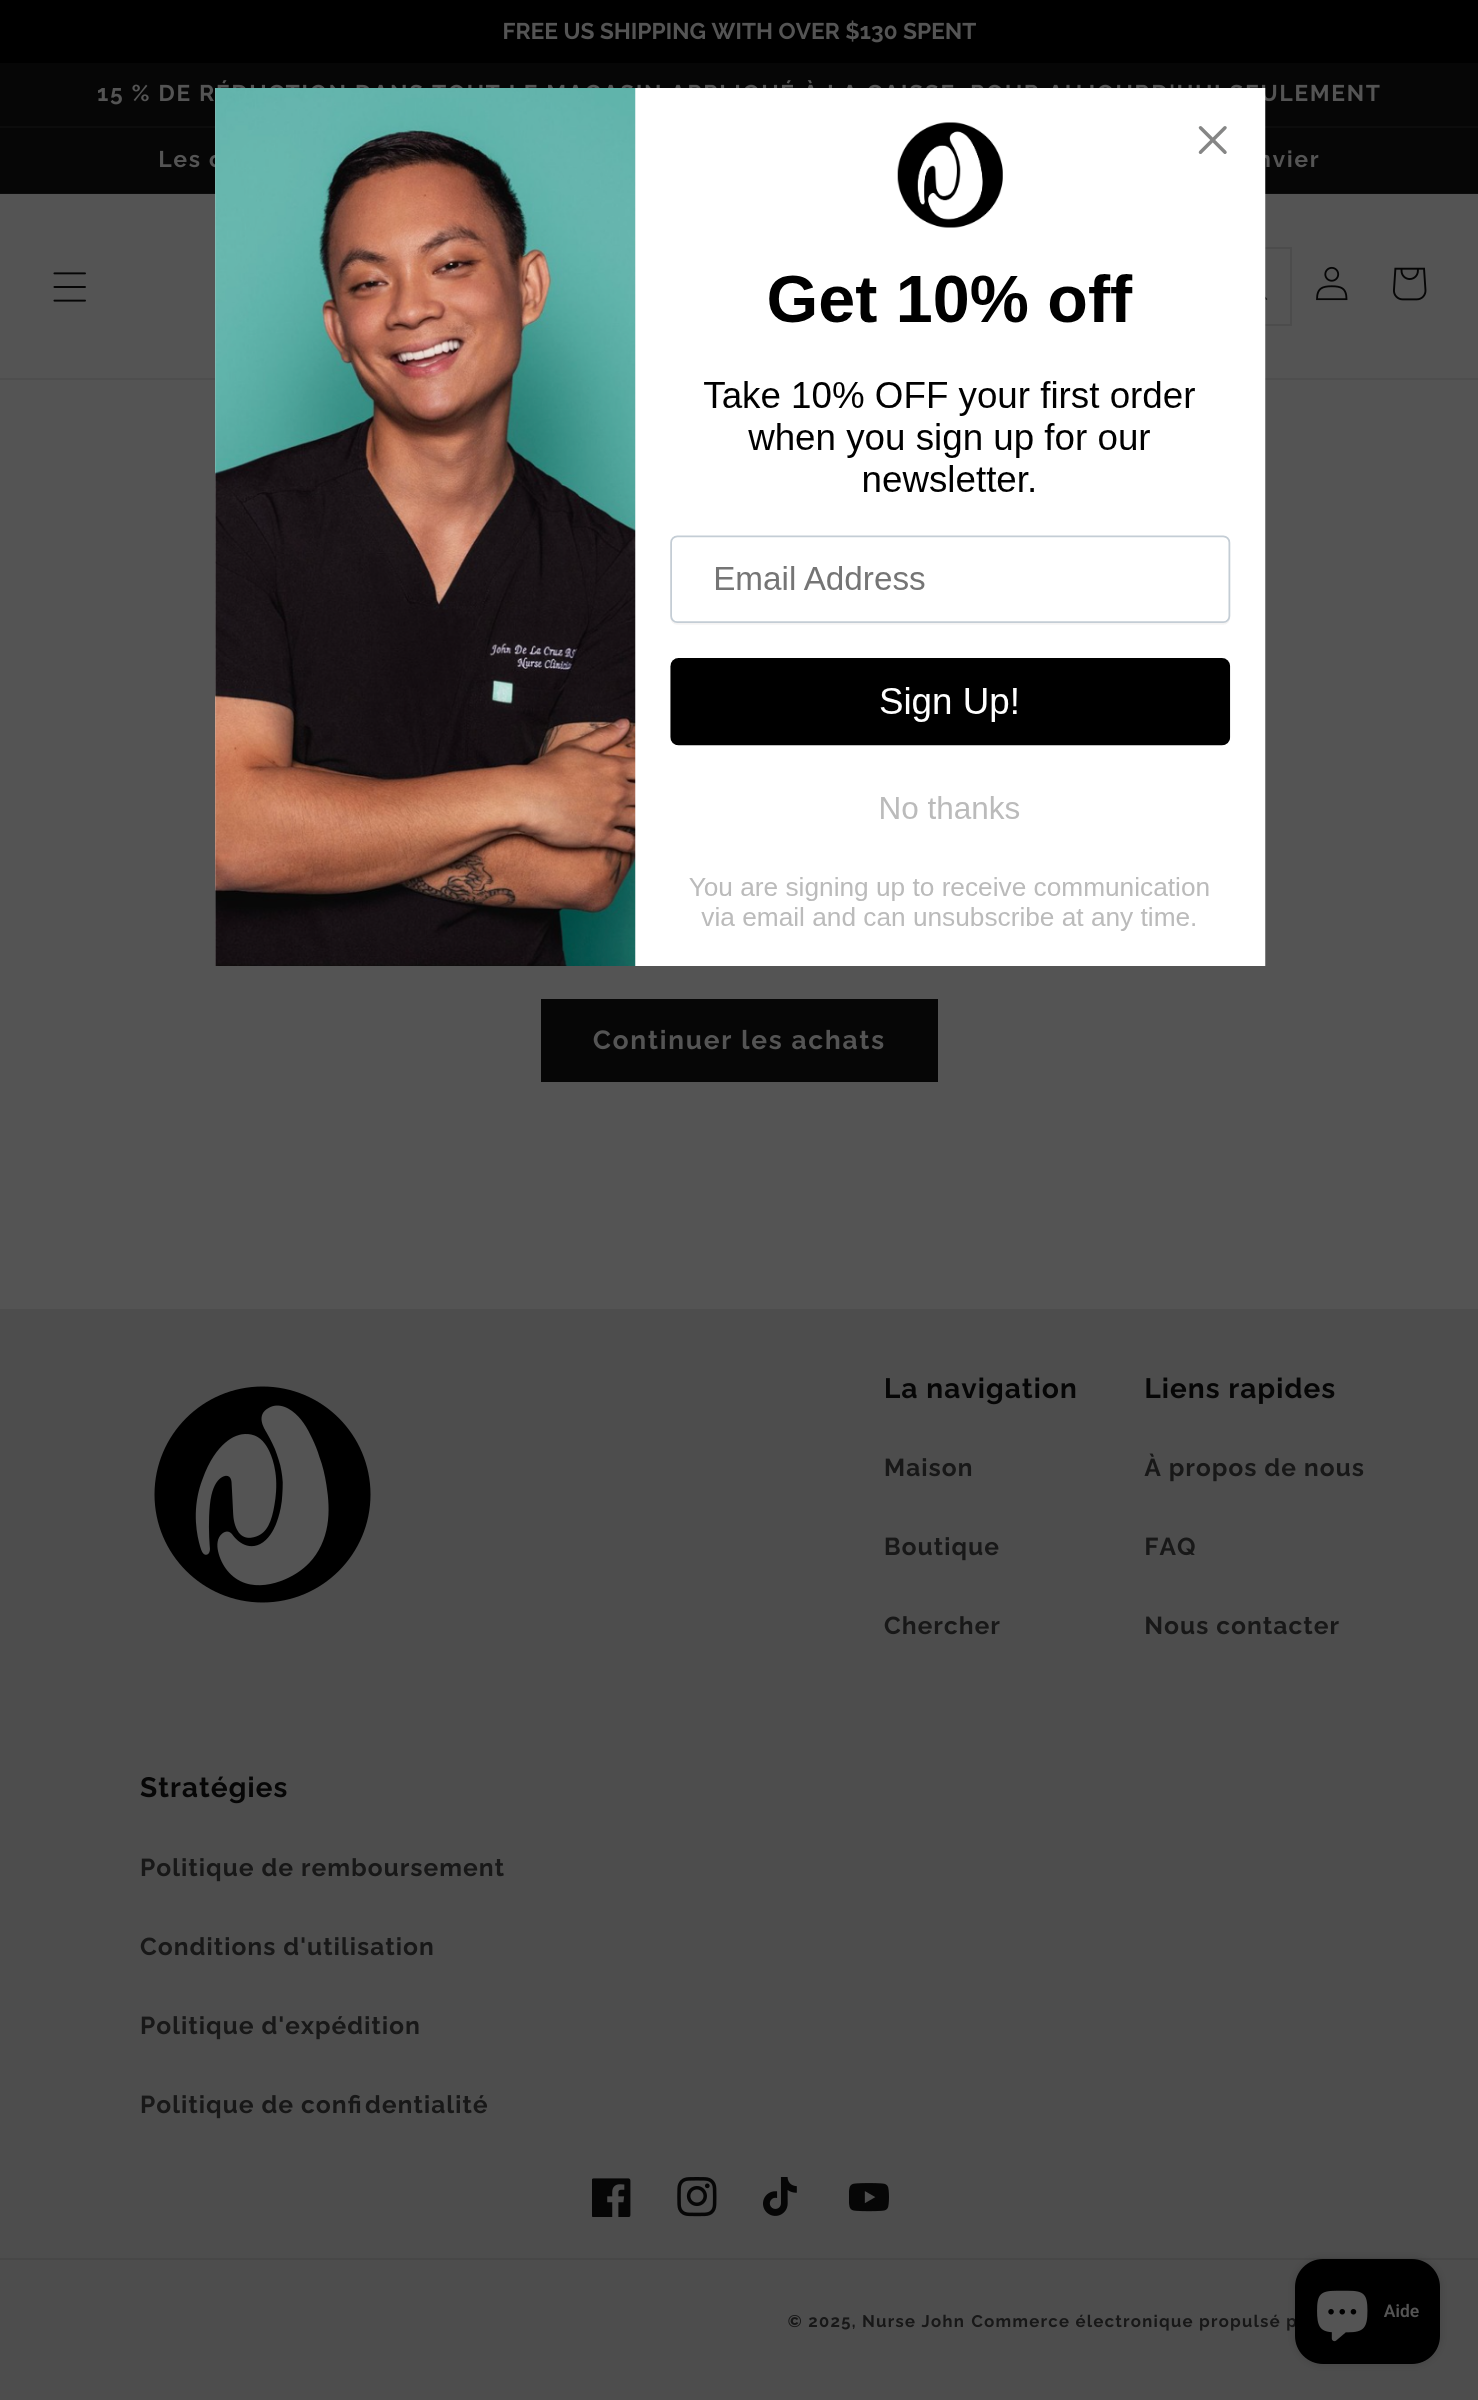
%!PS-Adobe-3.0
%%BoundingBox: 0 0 1478 2400
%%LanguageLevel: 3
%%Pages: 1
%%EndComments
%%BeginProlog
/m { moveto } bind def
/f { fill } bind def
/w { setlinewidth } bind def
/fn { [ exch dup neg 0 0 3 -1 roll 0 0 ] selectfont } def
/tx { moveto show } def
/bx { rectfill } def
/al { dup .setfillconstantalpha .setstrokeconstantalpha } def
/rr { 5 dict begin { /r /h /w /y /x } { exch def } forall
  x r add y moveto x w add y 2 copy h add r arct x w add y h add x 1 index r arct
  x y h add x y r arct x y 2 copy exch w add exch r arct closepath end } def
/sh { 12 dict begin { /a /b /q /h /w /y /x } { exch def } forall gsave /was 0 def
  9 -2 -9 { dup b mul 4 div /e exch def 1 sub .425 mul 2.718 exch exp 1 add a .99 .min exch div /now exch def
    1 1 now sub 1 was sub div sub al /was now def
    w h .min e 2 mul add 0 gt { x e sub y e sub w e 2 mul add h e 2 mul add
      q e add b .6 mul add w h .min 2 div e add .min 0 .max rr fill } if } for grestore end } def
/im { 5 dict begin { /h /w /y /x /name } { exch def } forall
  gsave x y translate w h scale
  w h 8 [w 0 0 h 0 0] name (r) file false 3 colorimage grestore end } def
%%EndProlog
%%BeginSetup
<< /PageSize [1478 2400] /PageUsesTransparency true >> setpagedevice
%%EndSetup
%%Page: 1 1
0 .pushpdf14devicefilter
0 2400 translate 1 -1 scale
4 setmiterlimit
1 setgray
0 0 1478 2400 bx
0 setgray
0 0 1478 63 bx
/Raleway-Bold 22.75 fn
1 setgray
(FREE US SHIPPING WITH OVER $130 SPENT) 502 39 tx
0.071 setgray
0 63 1478 63 bx
0.145 setgray
0 126 1478 2 bx
1 setgray
97 101 m 1.75 0 (15 % DE R) ashow
1279 101 m 1.75 0 (LEMENT) ashow
0.071 setgray
0 128 1478 65 bx
0.145 setgray
0 193 1478 1 bx
1 setgray
158 167 m 1.75 0 (Les c) ashow
1273 167 m 1.75 0 (vier) ashow
0.925 setgray
0 378 1478 2 bx
(image1.raw) 53 272 33 30 im
0.906 setgray
2 w
1016 248 275 77 rectstroke
(image2.raw) 1265 296 3 4 im
(image3.raw) 1316 266 32 35 im
(image4.raw) 1393 267 34 34 im
0.071 setgray
541 999 397 83 bx
/Raleway-Bold 26.25 fn
1 setgray
593 1049 m 1.75 0 (Continuer les achats) ashow
0.918 setgray
0 1309 1478 1091 bx
(image5.raw) 154 1386 217 217 im
/Raleway-Bold 28 fn
0.071 setgray
884 1398 m 1.05 0 (La navigation) ashow
/Raleway-Bold 24.5 fn
0.282 setgray
884 1476 m 1.05 0 (Maison) ashow
884 1555 m 1.05 0 (Boutique) ashow
884 1634 m 1.05 0 (Chercher) ashow
/Raleway-Bold 28 fn
0.071 setgray
1144 1398 m 1.05 0 (Liens rapides) ashow
/Raleway-Bold 24.5 fn
0.282 setgray
1144 1476 m 1.05 0 (À propos de nous) ashow
1144 1555 m 1.05 0 (FAQ) ashow
1144 1634 m 1.05 0 (Nous contacter) ashow
/Raleway-Bold 28 fn
0.071 setgray
140 1797 m 1.05 0 (Stratégies) ashow
/Raleway-Bold 24.5 fn
0.282 setgray
140 1876 m 1.05 0 (Politique de remboursement) ashow
140 1955 m 1.05 0 (Conditions d'utilisation) ashow
140 2034 m 1.05 0 (Politique d'expédition) ashow
140 2113 m 1.05 0 (Politique de confidentialité) ashow
(image6.raw) 592 2178 39 39 im
(image7.raw) 677 2177 40 40 im
(image8.raw) 763 2177 34 39 im
(image9.raw) 849 2183 40 29 im
0.851 setgray
0 2258 1478 2 bx
/Raleway-Bold 16.75 fn
0.282 setgray
788 2327 m 1.25 0 (© 2025, Nurse John) ashow
971 2327 m 1.25 0 (Commerce électronique propulsé p) ashow
0 setgray
1295 2259 145 105 28 4.5 0.15 sh
1295 2259 145 105 28 rr f
(image10.raw) 1317 2290 51 52 im
/Roboto-SemiBold 17.5 fn
1 setgray
(Aide) 1384 2317 tx
(image0.raw) 0 20 1478 2380 im
.poppdf14devicefilter showpage
%%EOF
